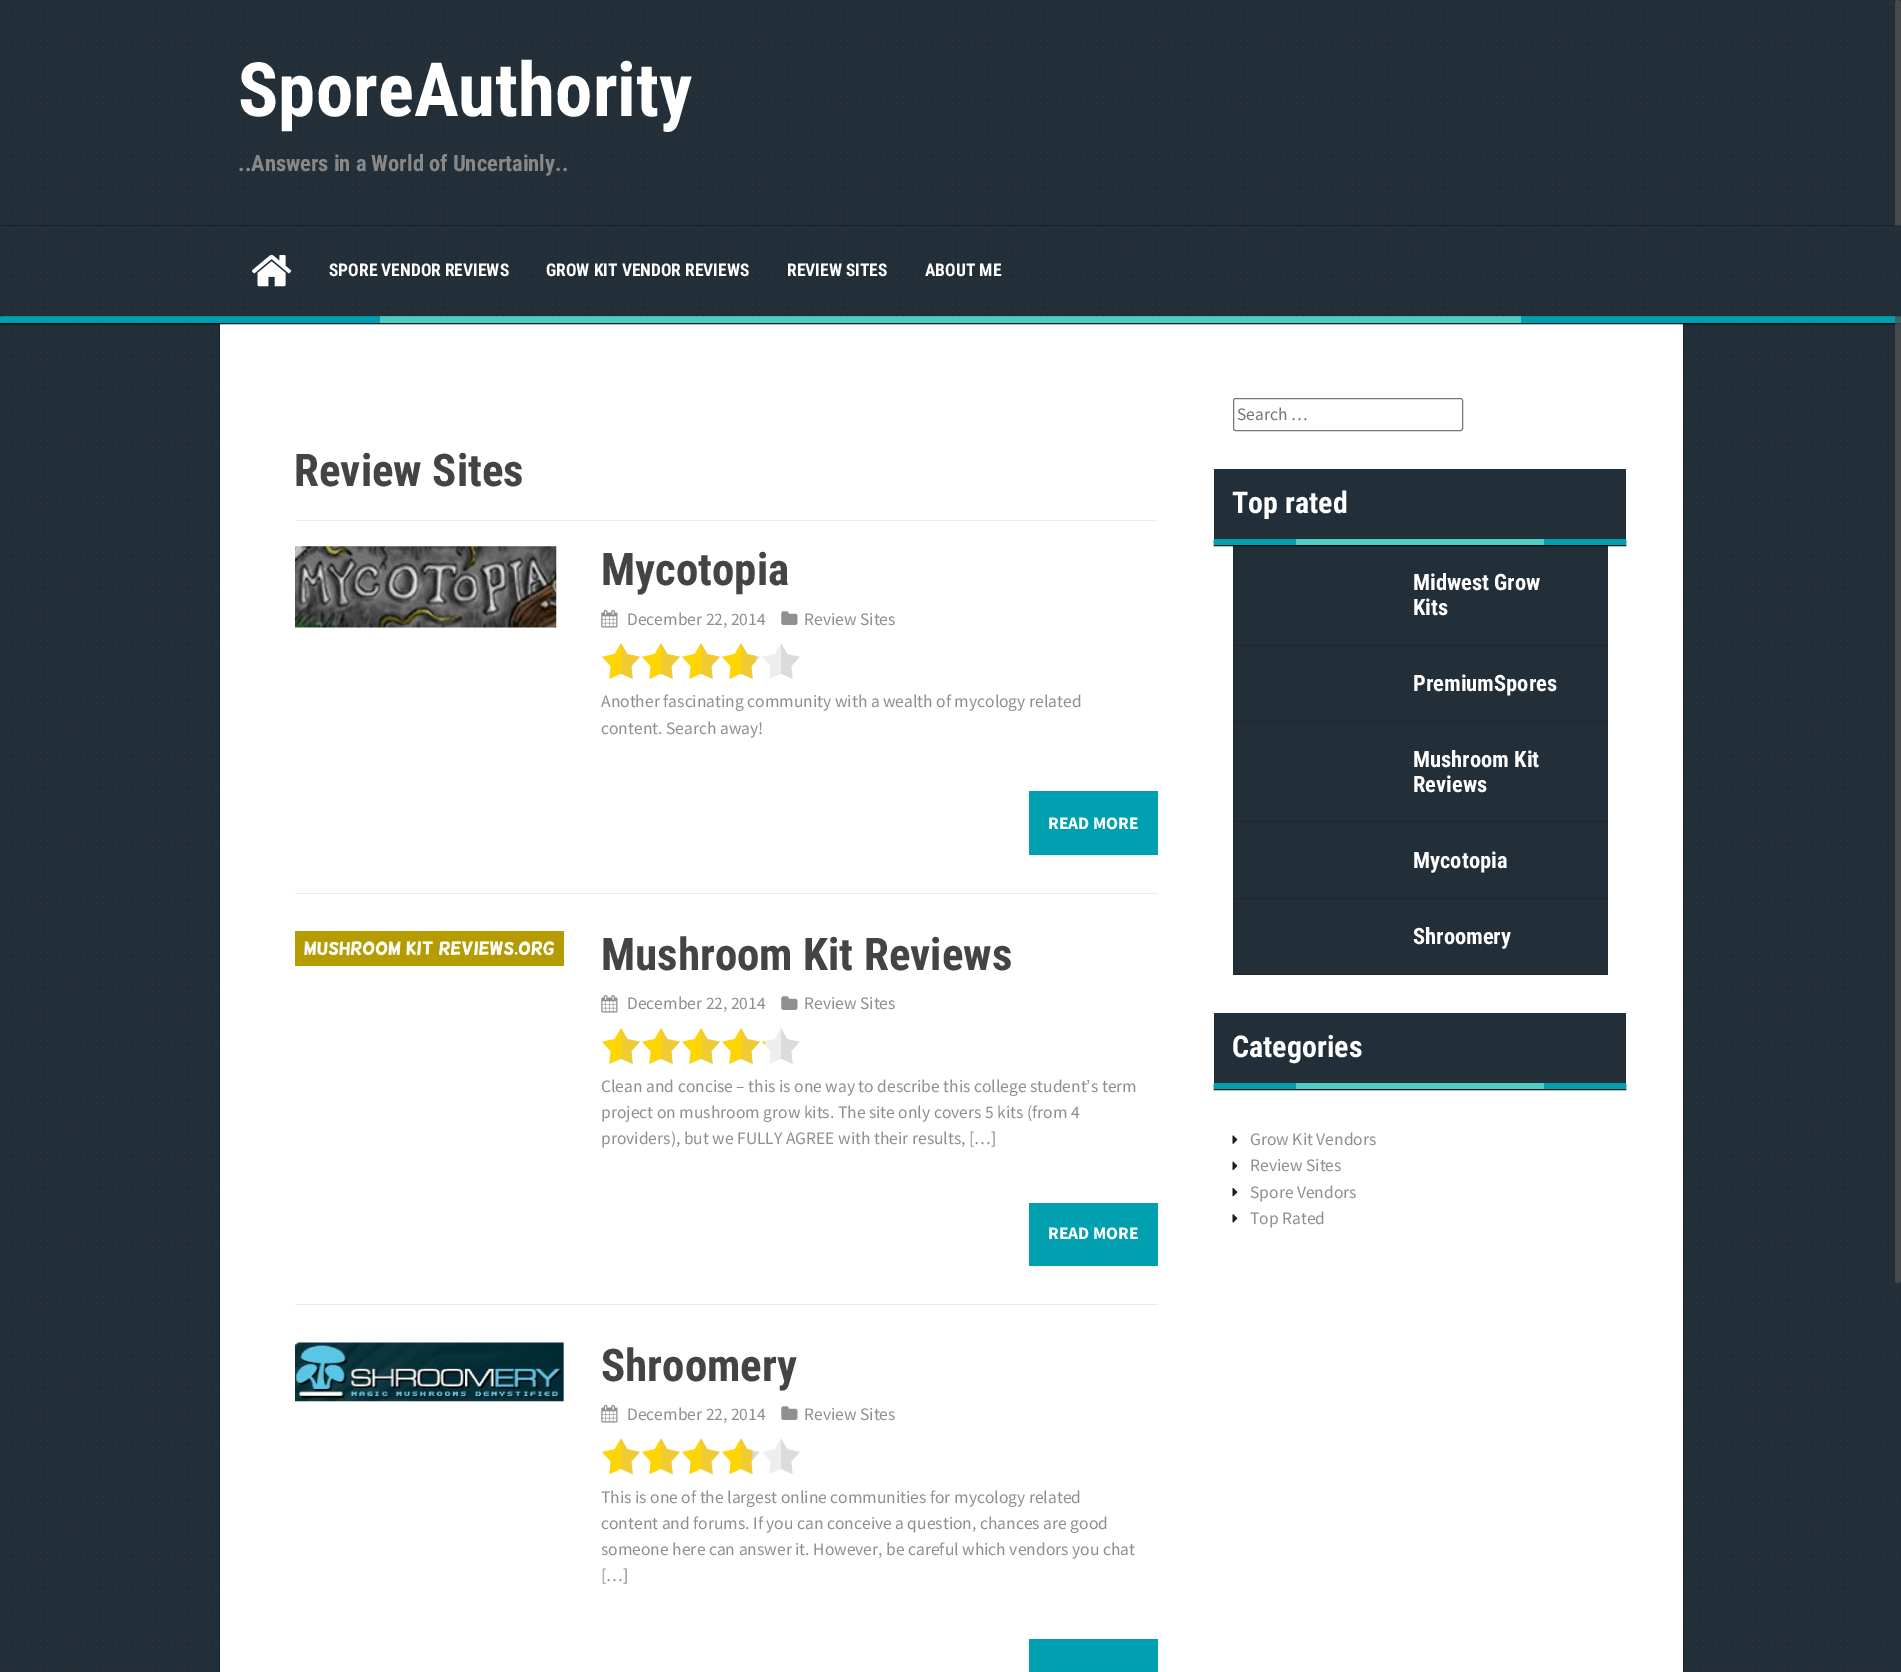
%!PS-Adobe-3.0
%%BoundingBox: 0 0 1901 1672
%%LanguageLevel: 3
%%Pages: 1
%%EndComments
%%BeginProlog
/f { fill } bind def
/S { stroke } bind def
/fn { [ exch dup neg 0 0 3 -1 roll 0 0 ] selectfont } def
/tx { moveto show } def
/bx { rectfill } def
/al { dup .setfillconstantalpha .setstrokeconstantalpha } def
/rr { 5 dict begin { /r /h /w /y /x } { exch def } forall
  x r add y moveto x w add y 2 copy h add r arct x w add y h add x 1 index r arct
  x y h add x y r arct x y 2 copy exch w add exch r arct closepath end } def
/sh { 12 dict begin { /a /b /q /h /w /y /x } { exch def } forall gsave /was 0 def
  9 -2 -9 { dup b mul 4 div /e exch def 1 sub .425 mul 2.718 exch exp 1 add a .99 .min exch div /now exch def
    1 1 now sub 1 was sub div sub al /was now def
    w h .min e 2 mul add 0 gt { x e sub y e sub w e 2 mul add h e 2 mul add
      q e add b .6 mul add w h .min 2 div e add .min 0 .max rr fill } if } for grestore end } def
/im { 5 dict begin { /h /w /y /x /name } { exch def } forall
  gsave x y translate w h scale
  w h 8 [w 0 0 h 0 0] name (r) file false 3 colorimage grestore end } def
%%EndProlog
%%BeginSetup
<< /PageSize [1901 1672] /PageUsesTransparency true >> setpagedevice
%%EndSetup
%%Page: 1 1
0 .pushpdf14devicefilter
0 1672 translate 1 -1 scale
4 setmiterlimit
0.133 0.18 0.22 setrgbcolor
0 0 1901 1672 bx
(image0.raw) 2 2 1896 1670 im
/RobotoCondensed-Bold 75 fn
1 setgray
(SporeAuthority) 238 116 tx
/RobotoCondensed-Bold 22.5 fn
0.533 setgray
(..Answers in a World of Uncertainly..) 238 171 tx
0 setgray
220 324 1463 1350 0 0.5 1 sh
1 setgray
220 323 1463 1349 bx
0 setgray
0 318 1901 6 0 0.5 1 sh
0 0.627 0.69 setrgbcolor
0 316 380 7 bx
0.306 0.804 0.769 setrgbcolor
380 316 1141 7 bx
0 0.627 0.69 setrgbcolor
1521 316 380 7 bx
0.77 al
0.322 setgray
1895 0 6 1283 3 rr f
1 al
0 setgray
0 226 1901 90 0 0.5 1 sh
0.133 0.18 0.22 setrgbcolor
0 226 1901 90 bx
(image1.raw) 2 228 1896 89 im
(image2.raw) 251 254 41 33 im
/RobotoCondensed-Bold 17.5 fn
1 setgray
(SPORE VENDOR REVIEWS) 329 276 tx
(GROW KIT VENDOR REVIEWS) 546 276 tx
(REVIEW SITES) 787 276 tx
(ABOUT ME) 925 276 tx
0.933 setgray
295 520 863 1 bx
/RobotoCondensed-Bold 45 fn
0.267 setgray
(Review Sites) 294 486 tx
0.922 setgray
295 893 863 1 bx
(image3.raw) 295 546 262 82 im
0.267 setgray
(Mycotopia) 601 585 tx
(image4.raw) 601 610 17 18 im
/SourceSansPro-Regular 17.5 fn
0.561 setgray
(December 22, 2014) 627 625 tx
(image5.raw) 781 611 17 14 im
(Review Sites) 804 625 tx
(image6.raw) 602 643 198 36 im
(image7.raw) 602 643 155 36 im
(Another fascinating community with a wealth of mycology related) 601 707 tx
(content. Search away!) 601 734 tx
0 0.627 0.69 setrgbcolor
1029 791 129 64 bx
/SourceSansPro-Bold 17.5 fn
1 setgray
(READ MORE) 1048 829 tx
0.922 setgray
295 1304 863 1 bx
(image8.raw) 295 931 269 35 im
/RobotoCondensed-Bold 45 fn
0.267 setgray
(Mushroom Kit Reviews) 601 970 tx
(image4.raw) 601 995 17 18 im
/SourceSansPro-Regular 17.5 fn
0.561 setgray
(December 22, 2014) 627 1009 tx
(image5.raw) 781 996 17 14 im
(Review Sites) 804 1009 tx
(image6.raw) 602 1028 198 36 im
(image9.raw) 602 1028 163 36 im
(Clean and concise – this is one way to describe this college student’s term) 601 1092 tx
(project on mushroom grow kits. The site only covers 5 kits \(from 4) 601 1118 tx
(providers\), but we FULLY AGREE with their results, […]) 601 1144 tx
0 0.627 0.69 setrgbcolor
1029 1203 129 63 bx
/SourceSansPro-Bold 17.5 fn
1 setgray
(READ MORE) 1048 1239 tx
(image10.raw) 295 1342 269 60 im
/RobotoCondensed-Bold 45 fn
0.267 setgray
(Shroomery) 601 1381 tx
(image4.raw) 601 1405 17 18 im
/SourceSansPro-Regular 17.5 fn
0.561 setgray
(December 22, 2014) 627 1420 tx
(image5.raw) 781 1406 17 14 im
(Review Sites) 804 1420 tx
(image11.raw) 602 1438 198 37 im
(image12.raw) 602 1438 151 37 im
(This is one of the largest online communities for mycology related) 601 1503 tx
(content and forums. If you can conceive a question, chances are good) 601 1529 tx
(someone here can answer it. However, be careful which vendors you chat) 601 1555 tx
([…]) 601 1581 tx
0 0.627 0.69 setrgbcolor
1029 1639 129 33 bx
0.463 setgray
1233.5 398.5 229 32 2 rr S
0.459 setgray
(Search …) 1237 420 tx
0.133 0.18 0.22 setrgbcolor
1233 545 375 429 bx
1214 469 412 70 bx
/RobotoCondensed-Bold 30 fn
1 setgray
(Top rated) 1232 513 tx
0 setgray
1214 540 412 6 0 0.5 1 sh
0 0.627 0.69 setrgbcolor
1214 539 82 6 bx
0.306 0.804 0.769 setrgbcolor
1296 539 248 6 bx
0 0.627 0.69 setrgbcolor
1544 539 82 6 bx
0.145 setgray
1233 645 375 1 bx
/RobotoCondensed-Bold 22.5 fn
1 setgray
(Midwest Grow) 1413 590 tx
(Kits) 1413 615 tx
0.145 setgray
1233 721 375 1 bx
1 setgray
(PremiumSpores) 1413 691 tx
0.145 setgray
1233 821 375 1 bx
1 setgray
(Mushroom Kit) 1413 767 tx
(Reviews) 1413 792 tx
0.145 setgray
1233 898 375 1 bx
1 setgray
(Mycotopia) 1413 868 tx
0.145 setgray
1233 974 375 1 bx
1 setgray
(Shroomery) 1413 944 tx
0.133 0.18 0.22 setrgbcolor
1214 1013 412 70 bx
/RobotoCondensed-Bold 30 fn
1 setgray
(Categories) 1232 1057 tx
0 setgray
1214 1084 412 6 0 0.5 1 sh
0 0.627 0.69 setrgbcolor
1214 1083 82 6 bx
0.306 0.804 0.769 setrgbcolor
1296 1083 248 6 bx
0 0.627 0.69 setrgbcolor
1544 1083 82 6 bx
(image13.raw) 1232 1135 6 9 im
/SourceSansPro-Regular 17.5 fn
0.561 setgray
(Grow Kit Vendors) 1250 1145 tx
(image14.raw) 1232 1161 6 10 im
(Review Sites) 1250 1171 tx
(image15.raw) 1232 1187 6 10 im
(Spore Vendors) 1250 1198 tx
(image16.raw) 1232 1214 6 9 im
(Top Rated) 1250 1224 tx
.poppdf14devicefilter showpage
%%EOF
